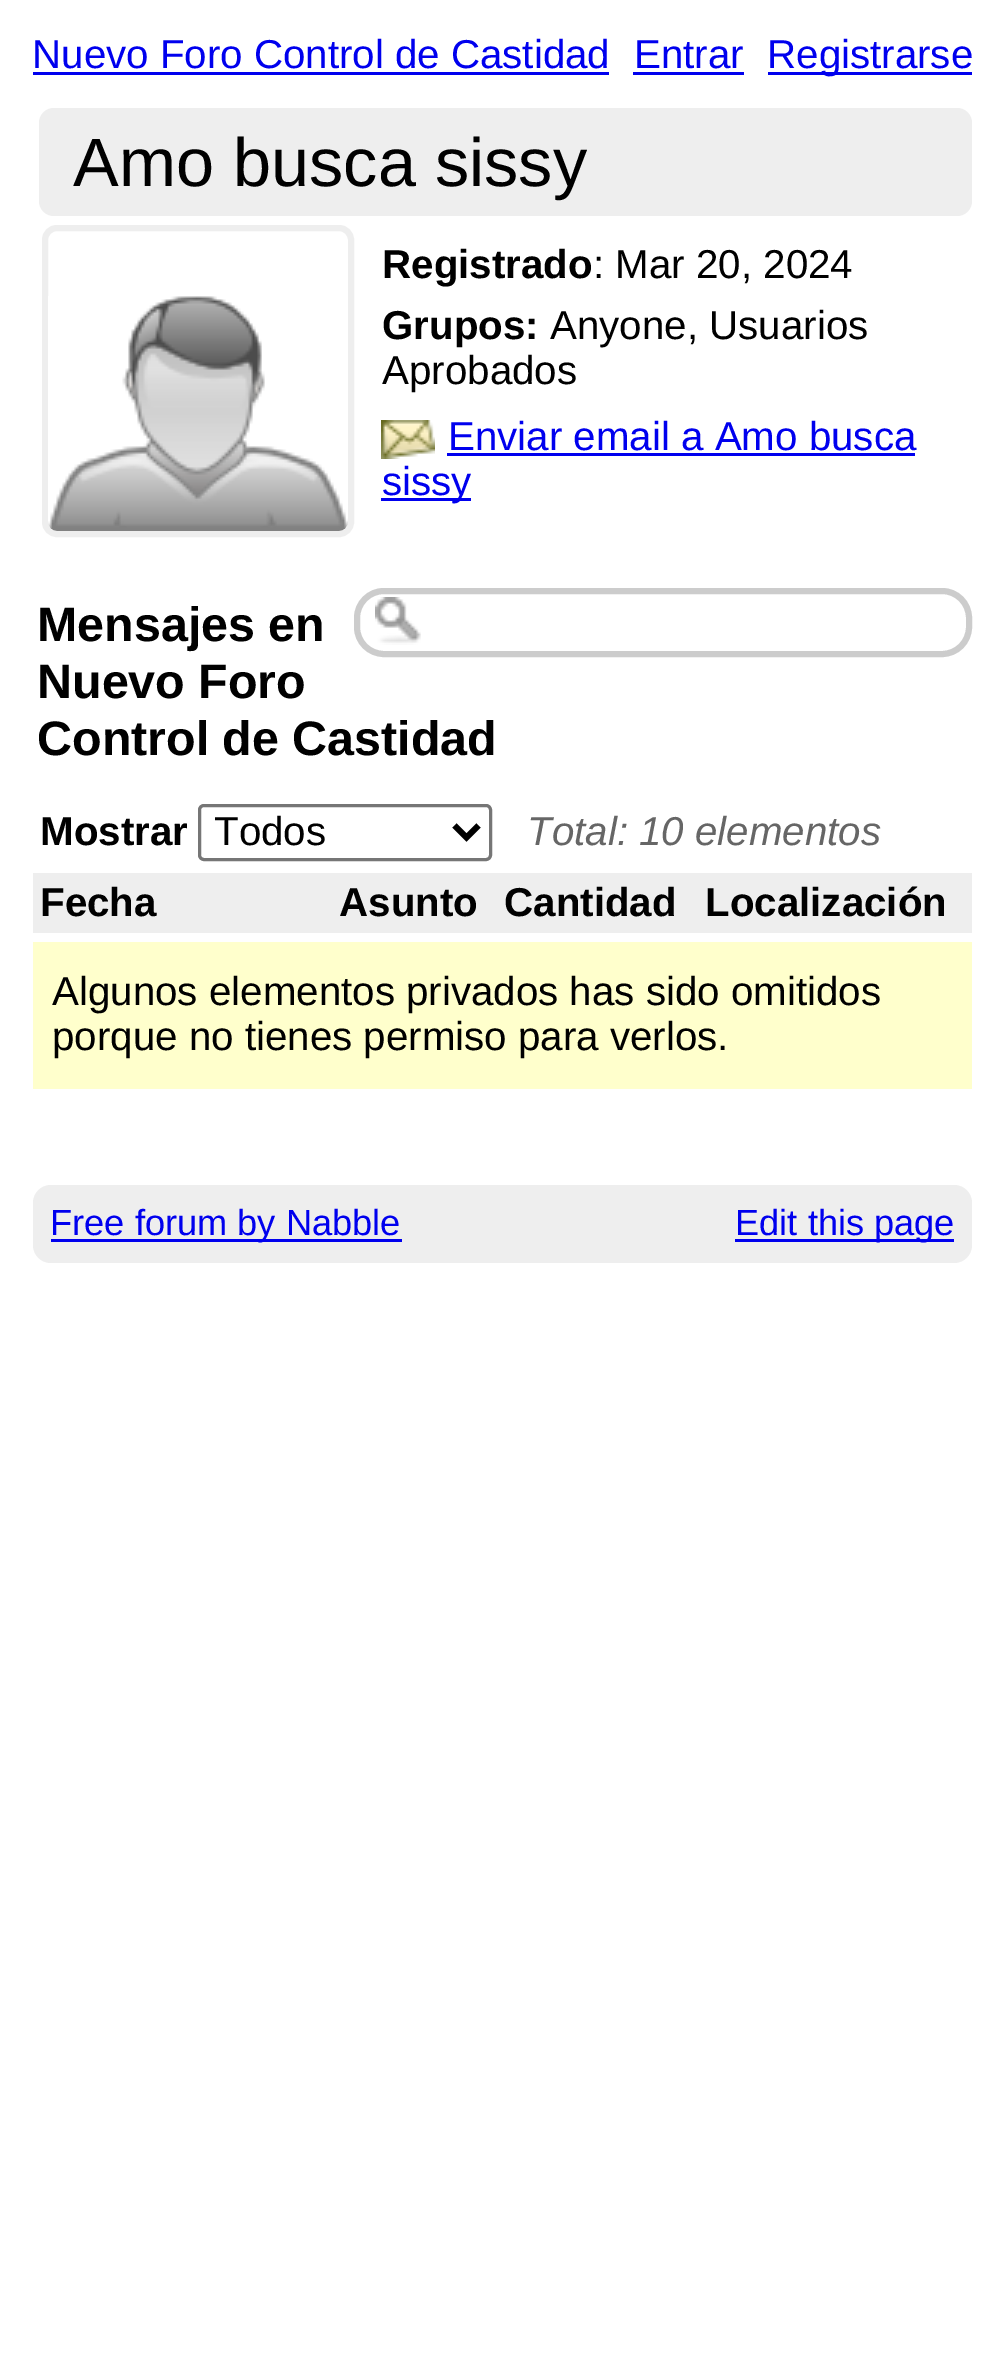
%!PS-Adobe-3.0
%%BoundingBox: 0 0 1004 2380
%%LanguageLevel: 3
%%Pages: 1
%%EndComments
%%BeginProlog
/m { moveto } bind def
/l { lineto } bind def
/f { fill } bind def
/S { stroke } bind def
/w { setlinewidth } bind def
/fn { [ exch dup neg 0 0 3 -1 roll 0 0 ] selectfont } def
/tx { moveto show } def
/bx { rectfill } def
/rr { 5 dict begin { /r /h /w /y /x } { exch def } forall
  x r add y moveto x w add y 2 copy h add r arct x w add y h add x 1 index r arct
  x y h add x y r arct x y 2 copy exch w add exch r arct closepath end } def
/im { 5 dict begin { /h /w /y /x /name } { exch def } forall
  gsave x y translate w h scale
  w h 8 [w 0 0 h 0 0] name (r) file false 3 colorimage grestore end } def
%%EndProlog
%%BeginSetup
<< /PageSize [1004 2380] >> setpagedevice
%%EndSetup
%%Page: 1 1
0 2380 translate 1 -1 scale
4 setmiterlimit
1 setgray
0 0 1004 2380 bx
/LiberationSans-Regular 40.3 fn
0 0 0.933 setrgbcolor
(Nuevo Foro Control de Castidad) 32 68 tx
33 72 576 3 bx
(Entrar) 634 68 tx
633 72 111 3 bx
768 72 204 3 bx
(Registrarse) 767 68 tx
0.933 setgray
39 108 933 108 15 rr f
/LiberationSans-Regular 68.5 fn
0 setgray
(Amo busca sissy) 73 186 tx
0.933 setgray
6 w
45 228 306 306 12 rr S
(image0.raw) 48 296 300 235 im
/LiberationSans-Bold 40.3 fn
0 setgray
(Registrado) 382 278 tx
/LiberationSans-Regular 40.3 fn
(: Mar 20, 2024) 593 278 tx
/LiberationSans-Bold 40.3 fn
(Grupos:) 382 339 tx
/LiberationSans-Regular 40.3 fn
(Anyone, Usuarios) 550 339 tx
(Aprobados) 382 384 tx
(image1.raw) 381 420 54 39 im
0 0 0.933 setrgbcolor
(Enviar email a Amo busca) 448 450 tx
447 453 468 3 bx
381 498 90 3 bx
(sissy) 382 495 tx
/LiberationSans-Bold 48.4 fn
0 setgray
(Mensajes en) 37 641 tx
(Nuevo Foro) 37 698 tx
(Control de Castidad) 37 755 tx
(image2.raw) 375 597 46 48 im
0.8 setgray
357 591 612 63 27 rr S
/LiberationSans-Bold 40.3 fn
0 setgray
(Mostrar) 40 845 tx
0.463 setgray
3 w
199.5 805.5 291 54 4.5 rr S
0 setgray
6 w
454.5 825.5 m 466.5 837.5 l 478.5 825.5 l S
/LiberationSans-Regular 40.3 fn
(Todos) 214 845 tx
/LiberationSans-Italic 40.3 fn
0.4 setgray
(Total: 10 elementos) 527 845 tx
0.933 setgray
33 873 939 60 bx
/LiberationSans-Bold 40.3 fn
0 setgray
(Fecha) 40 916 tx
(Asunto) 339 916 tx
(Cantidad) 504 916 tx
(Localización) 705 916 tx
1 1 0.8 setrgbcolor
33 942 939 147 bx
/LiberationSans-Regular 40.3 fn
0 setgray
(Algunos elementos privados has sido omitidos) 52 1005 tx
(porque no tienes permiso para verlos.) 52 1050 tx
0.933 setgray
33 1185 939 78 18 rr f
0 0 0.933 setrgbcolor
51 1239 351 3 bx
/LiberationSans-Regular 36.25 fn
(Free forum by Nabble) 50 1235 tx
735 1239 219 3 bx
(Edit this page) 735 1235 tx
showpage
%%EOF
